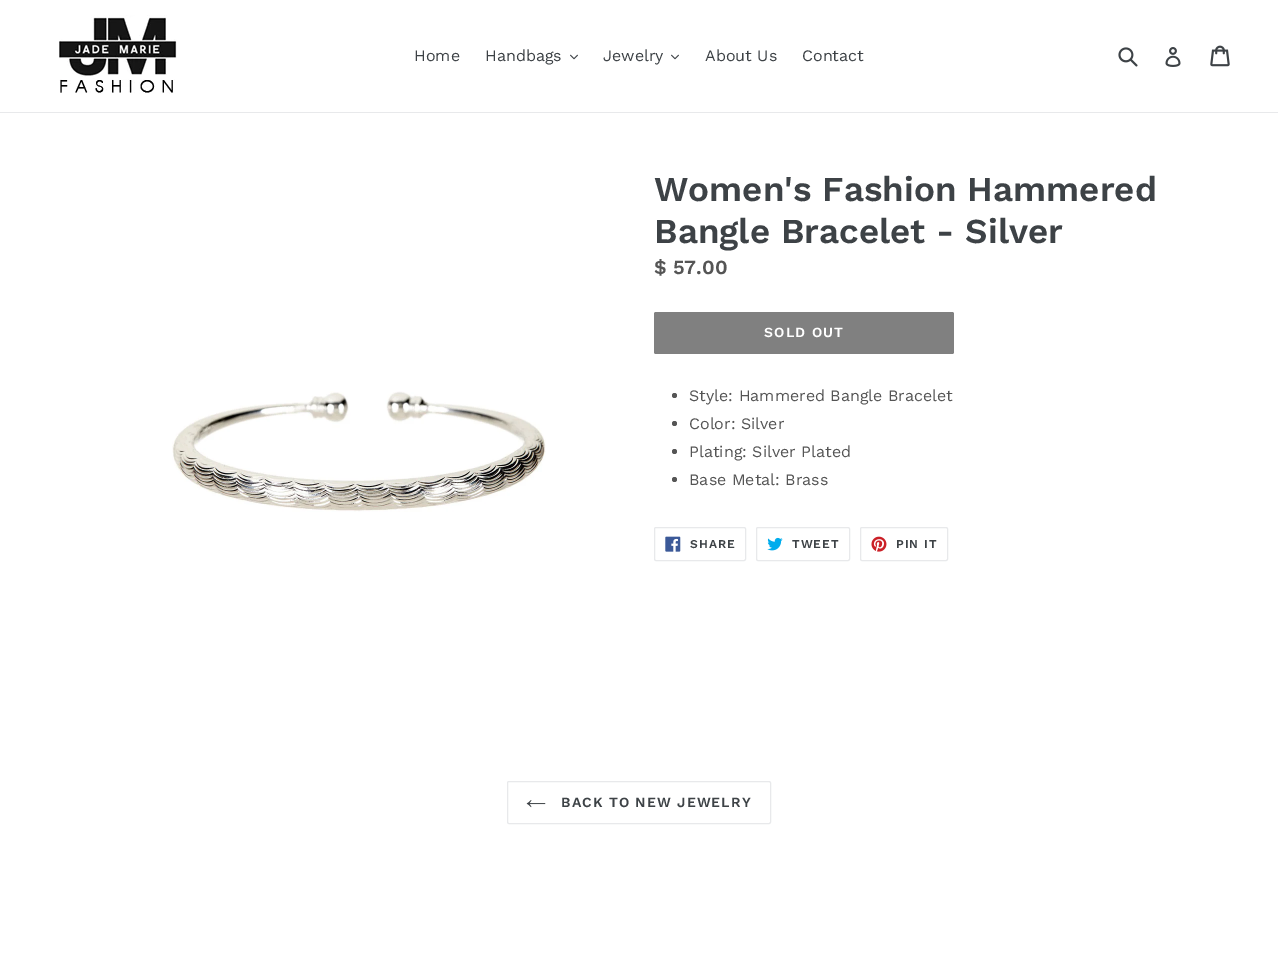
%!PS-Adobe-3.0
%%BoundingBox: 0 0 1278 966
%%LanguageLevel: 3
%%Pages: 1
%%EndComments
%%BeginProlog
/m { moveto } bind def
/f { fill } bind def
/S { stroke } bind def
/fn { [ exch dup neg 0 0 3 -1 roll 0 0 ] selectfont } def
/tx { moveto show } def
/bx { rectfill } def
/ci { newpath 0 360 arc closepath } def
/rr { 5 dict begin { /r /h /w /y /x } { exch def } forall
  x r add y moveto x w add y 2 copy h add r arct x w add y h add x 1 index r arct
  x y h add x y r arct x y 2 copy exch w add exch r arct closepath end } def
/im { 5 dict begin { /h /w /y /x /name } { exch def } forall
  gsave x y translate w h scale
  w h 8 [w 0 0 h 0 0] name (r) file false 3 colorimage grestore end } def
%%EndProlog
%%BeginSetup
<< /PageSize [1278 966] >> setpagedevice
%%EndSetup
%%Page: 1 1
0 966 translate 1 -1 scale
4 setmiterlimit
1 setgray
0 0 1278 966 bx
0.91 0.914 0.922 setrgbcolor
0 112 1278 1 bx
(image0.raw) 59 15 118 79 im
/WorkSans-Regular 16 fn
0.239 0.259 0.275 setrgbcolor
(Home) 414 61 tx
(Handbags) 485 61 tx
(image1.raw) 570 54 8 6 im
(Jewelry) 603 61 tx
(image1.raw) 671 54 8 6 im
(About Us) 705 61 tx
(Contact) 802 61 tx
(image2.raw) 1118 47 20 20 im
(image3.raw) 1165 47 16 20 im
(image4.raw) 1210 45 20 22 im
(image5.raw) 172 391 374 121 im
/WorkSans-SemiBold 35 fn
(Women's Fashion Hammered) 654 201 tx
(Bangle Bracelet - Silver) 654 243 tx
/WorkSans-SemiBold 20 fn
0.333 setgray
($ 57.00) 654 274 tx
0.502 setgray
654 312 300 42 2 rr f
/WorkSans-SemiBold 14 fn
1 setgray
764 337 m 1.1 0 (SOLD OUT) ashow
0.333 setgray
674.5 395.5 2.5 ci f
/WorkSans-Regular 16 fn
(Style: Hammered Bangle Bracelet) 689 401 tx
674.5 423.5 2.5 ci f
(Color: Silver) 689 429 tx
674.5 451.5 2.5 ci f
(Plating: Silver Plated) 689 457 tx
674.5 479.5 2.5 ci f
(Base Metal: Brass) 689 485 tx
0.91 0.914 0.922 setrgbcolor
654.5 527.5 91 33 1.5 rr S
(image6.raw) 665 536 16 16 im
/WorkSans-SemiBold 12 fn
0.239 0.259 0.275 setrgbcolor
690 548 m 1 0 (SHARE) ashow
0.91 0.914 0.922 setrgbcolor
756.5 527.5 93 33 1.5 rr S
(image7.raw) 767 537 16 14 im
0.239 0.259 0.275 setrgbcolor
792 548 m 1 0 (TWEET) ashow
0.91 0.914 0.922 setrgbcolor
860.5 527.5 87 33 1.5 rr S
(image8.raw) 871 536 16 16 im
0.239 0.259 0.275 setrgbcolor
896 548 m 1 0 (PIN IT) ashow
0.91 0.914 0.922 setrgbcolor
507.5 781.5 263 42 1.5 rr S
(image9.raw) 526 800 20 8 im
/WorkSans-SemiBold 14 fn
0.239 0.259 0.275 setrgbcolor
561 807 m 1.1 0 (BACK TO NEW JEWELRY) ashow
showpage
%%EOF
